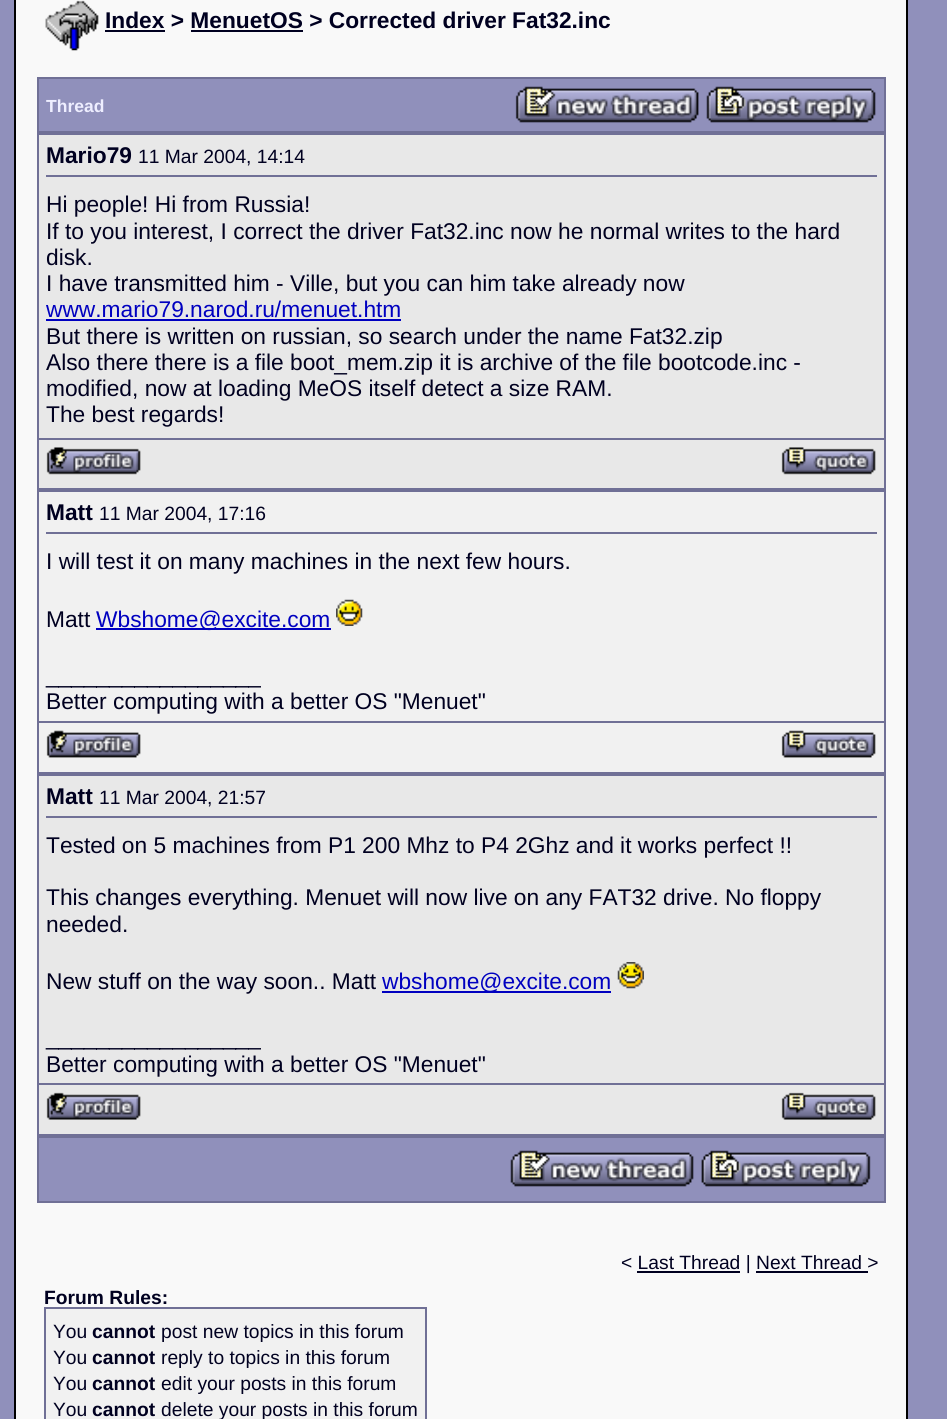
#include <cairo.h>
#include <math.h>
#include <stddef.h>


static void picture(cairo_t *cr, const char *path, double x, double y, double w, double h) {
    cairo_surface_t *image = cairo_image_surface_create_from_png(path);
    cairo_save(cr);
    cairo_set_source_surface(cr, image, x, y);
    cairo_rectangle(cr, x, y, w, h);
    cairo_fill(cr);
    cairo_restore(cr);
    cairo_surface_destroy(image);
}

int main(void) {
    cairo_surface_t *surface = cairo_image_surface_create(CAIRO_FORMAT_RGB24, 947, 1419);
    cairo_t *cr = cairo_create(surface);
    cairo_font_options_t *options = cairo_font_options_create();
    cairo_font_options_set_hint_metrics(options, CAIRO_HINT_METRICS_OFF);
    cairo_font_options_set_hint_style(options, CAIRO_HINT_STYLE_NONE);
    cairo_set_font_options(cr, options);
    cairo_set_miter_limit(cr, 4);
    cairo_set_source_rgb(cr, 0.565, 0.565, 0.733);
    cairo_paint(cr);
    cairo_set_source_rgb(cr, 0.973, 0.973, 0.973);
    cairo_rectangle(cr, 15, -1, 892, 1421);
    cairo_fill_preserve(cr);
    cairo_set_source_rgb(cr, 0, 0, 0);
    cairo_stroke(cr);
    picture(cr, "img1.png", 45, 0, 54, 51);
    cairo_select_font_face(cr, "Liberation Sans", CAIRO_FONT_SLANT_NORMAL, CAIRO_FONT_WEIGHT_BOLD);
    cairo_set_font_size(cr, 22.75);
    cairo_set_source_rgb(cr, 0, 0, 0.125);
    cairo_move_to(cr, 105, 28);
    cairo_show_text(cr, "Index > MenuetOS > Corrected driver Fat32.inc");
    cairo_rectangle(cr, 105, 30, 60, 2);
    cairo_fill(cr);
    cairo_rectangle(cr, 191, 30, 112, 2);
    cairo_fill(cr);
    cairo_set_source_rgb(cr, 0.439, 0.439, 0.588);
    cairo_rectangle(cr, 37, 77, 849, 2);
    cairo_fill(cr);
    cairo_rectangle(cr, 884, 77, 2, 56);
    cairo_fill(cr);
    cairo_rectangle(cr, 37, 131, 849, 4);
    cairo_fill(cr);
    cairo_rectangle(cr, 37, 77, 2, 56);
    cairo_fill(cr);
    cairo_set_source_rgb(cr, 0.565, 0.565, 0.733);
    cairo_rectangle(cr, 39, 79, 845, 52);
    cairo_fill(cr);
    cairo_set_font_size(cr, 17.5);
    cairo_set_source_rgb(cr, 0.933, 0.933, 1);
    cairo_move_to(cr, 46, 112);
    cairo_show_text(cr, "Thread");
    picture(cr, "img2.png", 515, 86, 184, 37);
    picture(cr, "img3.png", 706, 86, 170, 37);
    cairo_set_source_rgb(cr, 0.439, 0.439, 0.588);
    cairo_rectangle(cr, 884, 133, 2, 357);
    cairo_fill(cr);
    cairo_rectangle(cr, 37, 488, 849, 4);
    cairo_fill(cr);
    cairo_rectangle(cr, 37, 133, 2, 357);
    cairo_fill(cr);
    cairo_set_source_rgb(cr, 0.91, 0.91, 0.91);
    cairo_rectangle(cr, 39, 135, 845, 303);
    cairo_fill(cr);
    cairo_set_source_rgb(cr, 0.439, 0.439, 0.588);
    cairo_rectangle(cr, 46, 175, 831, 2);
    cairo_fill(cr);
    cairo_set_font_size(cr, 22.75);
    cairo_set_source_rgb(cr, 0, 0, 0.125);
    cairo_move_to(cr, 46, 163);
    cairo_show_text(cr, "Mario79");
    cairo_select_font_face(cr, "Liberation Sans", CAIRO_FONT_SLANT_NORMAL, CAIRO_FONT_WEIGHT_NORMAL);
    cairo_set_font_size(cr, 19.25);
    cairo_move_to(cr, 138, 163);
    cairo_show_text(cr, "11 Mar 2004, 14:14");
    cairo_set_font_size(cr, 22.75);
    cairo_move_to(cr, 46, 212);
    cairo_show_text(cr, "Hi people! Hi from Russia!");
    cairo_move_to(cr, 46, 239);
    cairo_show_text(cr, "If to you interest, I correct the driver Fat32.inc now he normal writes to the hard");
    cairo_move_to(cr, 46, 265);
    cairo_show_text(cr, "disk.");
    cairo_move_to(cr, 46, 291);
    cairo_show_text(cr, "I have transmitted him - Ville, but you can him take already now");
    cairo_set_source_rgb(cr, 0, 0, 0.753);
    cairo_move_to(cr, 46, 317);
    cairo_show_text(cr, "www.mario79.narod.ru/menuet.htm");
    cairo_rectangle(cr, 46, 319, 355, 2);
    cairo_fill(cr);
    cairo_set_source_rgb(cr, 0, 0, 0.125);
    cairo_move_to(cr, 46, 344);
    cairo_show_text(cr, "But there is written on russian, so search under the name Fat32.zip");
    cairo_move_to(cr, 46, 370);
    cairo_show_text(cr, "Also there there is a file boot_mem.zip it is archive of the file bootcode.inc -");
    cairo_move_to(cr, 46, 396);
    cairo_show_text(cr, "modified, now at loading MeOS itself detect a size RAM.");
    cairo_move_to(cr, 46, 422);
    cairo_show_text(cr, "The best regards!");
    cairo_set_source_rgb(cr, 0.439, 0.439, 0.588);
    cairo_rectangle(cr, 37, 438, 849, 2);
    cairo_fill(cr);
    cairo_set_source_rgb(cr, 0.91, 0.91, 0.91);
    cairo_rectangle(cr, 39, 440, 845, 48);
    cairo_fill(cr);
    picture(cr, "img4.png", 46, 447, 95, 28);
    picture(cr, "img5.png", 781, 447, 95, 28);
    cairo_set_source_rgb(cr, 0.439, 0.439, 0.588);
    cairo_rectangle(cr, 884, 490, 2, 284);
    cairo_fill(cr);
    cairo_rectangle(cr, 37, 772, 849, 4);
    cairo_fill(cr);
    cairo_rectangle(cr, 37, 490, 2, 284);
    cairo_fill(cr);
    cairo_set_source_rgb(cr, 0.945, 0.945, 0.945);
    cairo_rectangle(cr, 39, 492, 845, 229);
    cairo_fill(cr);
    cairo_set_source_rgb(cr, 0.439, 0.439, 0.588);
    cairo_rectangle(cr, 46, 532, 831, 2);
    cairo_fill(cr);
    cairo_select_font_face(cr, "Liberation Sans", CAIRO_FONT_SLANT_NORMAL, CAIRO_FONT_WEIGHT_BOLD);
    cairo_set_source_rgb(cr, 0, 0, 0.125);
    cairo_move_to(cr, 46, 520);
    cairo_show_text(cr, "Matt");
    cairo_select_font_face(cr, "Liberation Sans", CAIRO_FONT_SLANT_NORMAL, CAIRO_FONT_WEIGHT_NORMAL);
    cairo_set_font_size(cr, 19.25);
    cairo_move_to(cr, 99, 520);
    cairo_show_text(cr, "11 Mar 2004, 17:16");
    cairo_set_font_size(cr, 22.75);
    cairo_move_to(cr, 46, 569);
    cairo_show_text(cr, "I will test it on many machines in the next few hours.");
    cairo_move_to(cr, 46, 627);
    cairo_show_text(cr, "Matt");
    cairo_set_source_rgb(cr, 0, 0, 0.753);
    cairo_rectangle(cr, 96, 628, 235, 2);
    cairo_fill(cr);
    cairo_move_to(cr, 96, 627);
    cairo_show_text(cr, "Wbshome@excite.com");
    picture(cr, "img6.png", 336, 599, 27, 27);
    cairo_set_source_rgb(cr, 0, 0, 0.125);
    cairo_move_to(cr, 46, 683);
    cairo_show_text(cr, "_________________");
    cairo_move_to(cr, 46, 709);
    cairo_show_text(cr, "Better computing with a better OS \"Menuet\"");
    cairo_set_source_rgb(cr, 0.439, 0.439, 0.588);
    cairo_rectangle(cr, 37, 721, 849, 2);
    cairo_fill(cr);
    cairo_set_source_rgb(cr, 0.945, 0.945, 0.945);
    cairo_rectangle(cr, 39, 723, 845, 49);
    cairo_fill(cr);
    picture(cr, "img7.png", 46, 730, 95, 28);
    picture(cr, "img8.png", 781, 730, 95, 28);
    cairo_set_source_rgb(cr, 0.439, 0.439, 0.588);
    cairo_rectangle(cr, 884, 774, 2, 362);
    cairo_fill(cr);
    cairo_rectangle(cr, 37, 1134, 849, 4);
    cairo_fill(cr);
    cairo_rectangle(cr, 37, 774, 2, 362);
    cairo_fill(cr);
    cairo_set_source_rgb(cr, 0.91, 0.91, 0.91);
    cairo_rectangle(cr, 39, 776, 845, 307);
    cairo_fill(cr);
    cairo_set_source_rgb(cr, 0.439, 0.439, 0.588);
    cairo_rectangle(cr, 46, 816, 831, 2);
    cairo_fill(cr);
    cairo_select_font_face(cr, "Liberation Sans", CAIRO_FONT_SLANT_NORMAL, CAIRO_FONT_WEIGHT_BOLD);
    cairo_set_source_rgb(cr, 0, 0, 0.125);
    cairo_move_to(cr, 46, 804);
    cairo_show_text(cr, "Matt");
    cairo_select_font_face(cr, "Liberation Sans", CAIRO_FONT_SLANT_NORMAL, CAIRO_FONT_WEIGHT_NORMAL);
    cairo_set_font_size(cr, 19.25);
    cairo_move_to(cr, 99, 804);
    cairo_show_text(cr, "11 Mar 2004, 21:57");
    cairo_set_font_size(cr, 22.75);
    cairo_move_to(cr, 46, 853);
    cairo_show_text(cr, "Tested on 5 machines from P1 200 Mhz to P4 2Ghz and it works perfect !!");
    cairo_move_to(cr, 46, 905);
    cairo_show_text(cr, "This changes everything. Menuet will now live on any FAT32 drive. No floppy");
    cairo_move_to(cr, 46, 932);
    cairo_show_text(cr, "needed.");
    cairo_move_to(cr, 46, 989);
    cairo_show_text(cr, "New stuff on the way soon.. Matt");
    cairo_set_source_rgb(cr, 0, 0, 0.753);
    cairo_rectangle(cr, 382, 991, 229, 2);
    cairo_fill(cr);
    cairo_move_to(cr, 382, 989);
    cairo_show_text(cr, "wbshome@excite.com");
    picture(cr, "img9.png", 617, 962, 27, 27);
    cairo_set_source_rgb(cr, 0, 0, 0.125);
    cairo_move_to(cr, 46, 1045);
    cairo_show_text(cr, "_________________");
    cairo_move_to(cr, 46, 1072);
    cairo_show_text(cr, "Better computing with a better OS \"Menuet\"");
    cairo_set_source_rgb(cr, 0.439, 0.439, 0.588);
    cairo_rectangle(cr, 37, 1083, 849, 2);
    cairo_fill(cr);
    cairo_set_source_rgb(cr, 0.91, 0.91, 0.91);
    cairo_rectangle(cr, 39, 1085, 845, 49);
    cairo_fill(cr);
    picture(cr, "img10.png", 46, 1092, 95, 28);
    picture(cr, "img11.png", 781, 1092, 95, 28);
    cairo_set_source_rgb(cr, 0.439, 0.439, 0.588);
    cairo_rectangle(cr, 884, 1136, 2, 66);
    cairo_fill(cr);
    cairo_rectangle(cr, 37, 1201, 849, 2);
    cairo_fill(cr);
    cairo_rectangle(cr, 37, 1136, 2, 66);
    cairo_fill(cr);
    cairo_set_source_rgb(cr, 0.565, 0.565, 0.733);
    cairo_rectangle(cr, 39, 1138, 845, 63);
    cairo_fill(cr);
    picture(cr, "img12.png", 510, 1150, 184, 37);
    picture(cr, "img13.png", 701, 1150, 170, 37);
    cairo_set_font_size(cr, 19.25);
    cairo_set_source_rgb(cr, 0, 0, 0.125);
    cairo_move_to(cr, 621, 1269);
    cairo_show_text(cr, "< Last Thread | Next Thread >");
    cairo_rectangle(cr, 637, 1271, 103, 2);
    cairo_fill(cr);
    cairo_rectangle(cr, 756, 1271, 112, 2);
    cairo_fill(cr);
    cairo_select_font_face(cr, "Liberation Sans", CAIRO_FONT_SLANT_NORMAL, CAIRO_FONT_WEIGHT_BOLD);
    cairo_move_to(cr, 44, 1304);
    cairo_show_text(cr, "Forum Rules:");
    cairo_set_source_rgb(cr, 0.439, 0.439, 0.588);
    cairo_rectangle(cr, 44, 1307, 383, 2);
    cairo_fill(cr);
    cairo_rectangle(cr, 425, 1307, 2, 112);
    cairo_fill(cr);
    cairo_rectangle(cr, 44, 1307, 2, 112);
    cairo_fill(cr);
    cairo_set_source_rgb(cr, 0.945, 0.945, 0.945);
    cairo_rectangle(cr, 46, 1309, 379, 110);
    cairo_fill(cr);
    cairo_select_font_face(cr, "Liberation Sans", CAIRO_FONT_SLANT_NORMAL, CAIRO_FONT_WEIGHT_NORMAL);
    cairo_set_source_rgb(cr, 0, 0, 0.125);
    cairo_move_to(cr, 53, 1338);
    cairo_show_text(cr, "You");
    cairo_select_font_face(cr, "Liberation Sans", CAIRO_FONT_SLANT_NORMAL, CAIRO_FONT_WEIGHT_BOLD);
    cairo_move_to(cr, 92, 1338);
    cairo_show_text(cr, "cannot");
    cairo_select_font_face(cr, "Liberation Sans", CAIRO_FONT_SLANT_NORMAL, CAIRO_FONT_WEIGHT_NORMAL);
    cairo_move_to(cr, 161, 1338);
    cairo_show_text(cr, "post new topics in this forum");
    cairo_move_to(cr, 53, 1364);
    cairo_show_text(cr, "You");
    cairo_select_font_face(cr, "Liberation Sans", CAIRO_FONT_SLANT_NORMAL, CAIRO_FONT_WEIGHT_BOLD);
    cairo_move_to(cr, 92, 1364);
    cairo_show_text(cr, "cannot");
    cairo_select_font_face(cr, "Liberation Sans", CAIRO_FONT_SLANT_NORMAL, CAIRO_FONT_WEIGHT_NORMAL);
    cairo_move_to(cr, 161, 1364);
    cairo_show_text(cr, "reply to topics in this forum");
    cairo_move_to(cr, 53, 1390);
    cairo_show_text(cr, "You");
    cairo_select_font_face(cr, "Liberation Sans", CAIRO_FONT_SLANT_NORMAL, CAIRO_FONT_WEIGHT_BOLD);
    cairo_move_to(cr, 92, 1390);
    cairo_show_text(cr, "cannot");
    cairo_select_font_face(cr, "Liberation Sans", CAIRO_FONT_SLANT_NORMAL, CAIRO_FONT_WEIGHT_NORMAL);
    cairo_move_to(cr, 161, 1390);
    cairo_show_text(cr, "edit your posts in this forum");
    cairo_move_to(cr, 53, 1416);
    cairo_show_text(cr, "You");
    cairo_select_font_face(cr, "Liberation Sans", CAIRO_FONT_SLANT_NORMAL, CAIRO_FONT_WEIGHT_BOLD);
    cairo_move_to(cr, 92, 1416);
    cairo_show_text(cr, "cannot");
    cairo_select_font_face(cr, "Liberation Sans", CAIRO_FONT_SLANT_NORMAL, CAIRO_FONT_WEIGHT_NORMAL);
    cairo_move_to(cr, 161, 1416);
    cairo_show_text(cr, "delete your posts in this forum");
    cairo_surface_write_to_png(surface, "page.png");
    cairo_font_options_destroy(options);
    cairo_destroy(cr);
    cairo_surface_destroy(surface);
    return 0;
}
